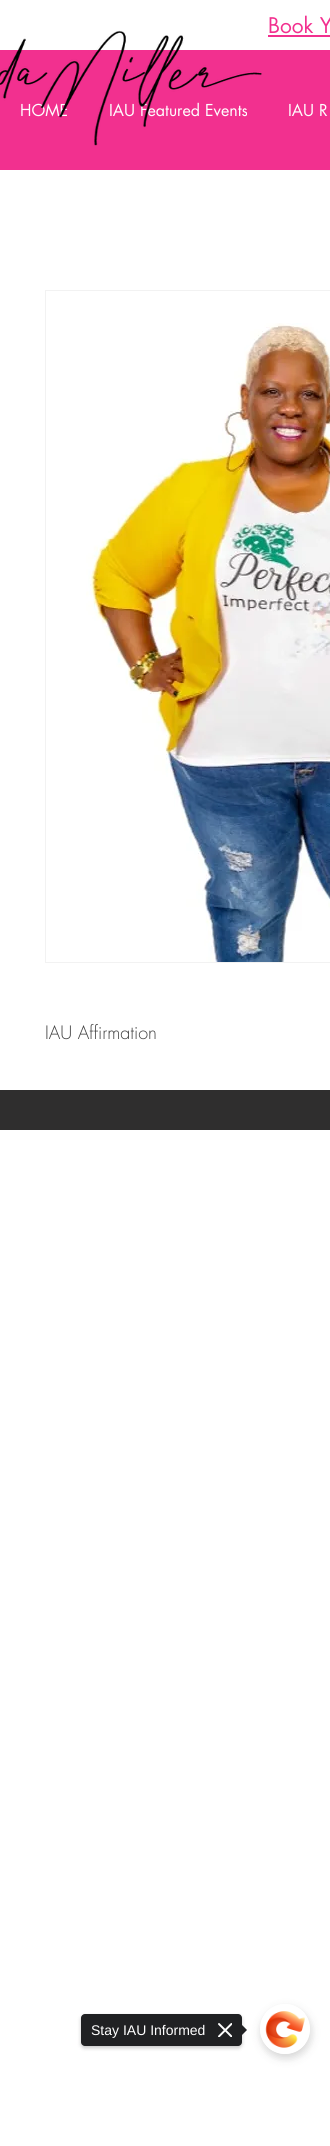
#include <cairo.h>
#include <math.h>
#include <stddef.h>


static void round_rect(cairo_t *cr, double x, double y, double w, double h, double r) {
    cairo_new_sub_path(cr);
    cairo_arc(cr, x + w - r, y + h - r, r, 0, M_PI / 2);
    cairo_arc(cr, x + r, y + h - r, r, M_PI / 2, M_PI);
    cairo_arc(cr, x + r, y + r, r, M_PI, 1.5 * M_PI);
    cairo_arc(cr, x + w - r, y + r, r, 1.5 * M_PI, 2 * M_PI);
    cairo_close_path(cr);
}

static void shadow(cairo_t *cr, double x, double y, double w, double h, double r, double blur, double alpha) {
    cairo_push_group_with_content(cr, CAIRO_CONTENT_ALPHA);
    cairo_set_operator(cr, CAIRO_OPERATOR_SOURCE);
    for (int i = 15; i >= -15 && fmin(w, h) + blur * i / 3 > 0; i -= 2) {
        double e = blur * i / 6;
        cairo_set_source_rgba(cr, 0, 0, 0, alpha * erfc((i - 1) / 8.5) / 2);
        round_rect(cr, x - e, y - e, w + 2 * e, h + 2 * e, fmax(0, fmin(r + e + blur * .6, fmin(w, h) / 2 + e)));
        cairo_fill(cr);
    }
    cairo_pattern_t *soft = cairo_pop_group(cr);
    cairo_mask(cr, soft);
    cairo_pattern_destroy(soft);
}

static void picture(cairo_t *cr, const char *path, double x, double y, double w, double h) {
    cairo_surface_t *image = cairo_image_surface_create_from_png(path);
    cairo_save(cr);
    cairo_set_source_surface(cr, image, x, y);
    cairo_rectangle(cr, x, y, w, h);
    cairo_fill(cr);
    cairo_restore(cr);
    cairo_surface_destroy(image);
}

int main(void) {
    cairo_surface_t *surface = cairo_image_surface_create(CAIRO_FORMAT_RGB24, 330, 2146);
    cairo_t *cr = cairo_create(surface);
    cairo_font_options_t *options = cairo_font_options_create();
    cairo_font_options_set_hint_metrics(options, CAIRO_HINT_METRICS_OFF);
    cairo_font_options_set_hint_style(options, CAIRO_HINT_STYLE_NONE);
    cairo_set_font_options(cr, options);
    cairo_set_miter_limit(cr, 4);
    cairo_set_source_rgb(cr, 1, 1, 1);
    cairo_paint(cr);
    cairo_select_font_face(cr, "futura", CAIRO_FONT_SLANT_NORMAL, CAIRO_FONT_WEIGHT_NORMAL);
    cairo_set_font_size(cr, 21);
    cairo_set_source_rgb(cr, 0.949, 0.188, 0.561);
    cairo_move_to(cr, 268, 33);
    cairo_show_text(cr, "Book Y");
    cairo_rectangle(cr, 268, 35, 62, 2);
    cairo_fill(cr);
    cairo_rectangle(cr, 0, 50, 330, 120);
    cairo_fill(cr);
    cairo_set_font_size(cr, 16);
    cairo_set_source_rgb(cr, 1, 1, 1);
    cairo_move_to(cr, 20, 116);
    cairo_show_text(cr, "HOME");
    cairo_move_to(cr, 109, 116);
    cairo_show_text(cr, "IAU Featured Events");
    picture(cr, "img1.png", 0, 30, 262, 116);
    cairo_move_to(cr, 288, 116);
    cairo_show_text(cr, "IAU R");
    cairo_rectangle(cr, 45.5, 290.5, 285, 672);
    cairo_set_source_rgb(cr, 0.949, 0.949, 0.949);
    cairo_set_line_width(cr, 1);
    cairo_stroke(cr);
    picture(cr, "img2.png", 86, 323, 244, 639);
    cairo_select_font_face(cr, "futura Light", CAIRO_FONT_SLANT_NORMAL, CAIRO_FONT_WEIGHT_NORMAL);
    cairo_set_font_size(cr, 18);
    cairo_set_source_rgb(cr, 0.255, 0.255, 0.255);
    cairo_move_to(cr, 45, 1039);
    cairo_show_text(cr, "IAU Affirmation");
    cairo_set_source_rgb(cr, 0.184, 0.18, 0.18);
    cairo_rectangle(cr, 0, 1090, 330, 40);
    cairo_fill(cr);
    cairo_save(cr);
    cairo_set_fill_rule(cr, CAIRO_FILL_RULE_EVEN_ODD);
    cairo_new_path(cr);
    cairo_move_to(cr, 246, 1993);
    cairo_line_to(cr, 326, 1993);
    cairo_line_to(cr, 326, 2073);
    cairo_line_to(cr, 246, 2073);
    cairo_close_path(cr);
    cairo_move_to(cr, 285, 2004);
    cairo_curve_to(cr, 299, 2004, 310, 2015, 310, 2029);
    cairo_curve_to(cr, 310, 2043, 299, 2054, 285, 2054);
    cairo_curve_to(cr, 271, 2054, 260, 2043, 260, 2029);
    cairo_curve_to(cr, 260, 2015, 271, 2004, 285, 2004);
    cairo_close_path(cr);
    cairo_clip(cr);
    cairo_set_source_rgb(cr, 0, 0, 0);
    shadow(cr, 261, 2008, 50, 50, 25, 4.5, 0.17);
    cairo_restore(cr);
    cairo_set_source_rgb(cr, 0, 0, 0);
    shadow(cr, 81, 2016, 161, 32, 4, 2, 0.22);
    cairo_set_source_rgb(cr, 0.125, 0.129, 0.137);
    round_rect(cr, 81, 2014, 161, 32, 4);
    cairo_fill(cr);
    cairo_select_font_face(cr, "Liberation Sans", CAIRO_FONT_SLANT_NORMAL, CAIRO_FONT_WEIGHT_NORMAL);
    cairo_set_font_size(cr, 14);
    cairo_set_source_rgb(cr, 1, 1, 1);
    cairo_move_to(cr, 91, 2035);
    cairo_show_text(cr, "Stay IAU Informed");
    picture(cr, "img3.png", 218, 2023, 14, 14);
    cairo_set_source_rgb(cr, 0.125, 0.129, 0.137);
    cairo_new_path(cr);
    cairo_move_to(cr, 240, 2037);
    cairo_line_to(cr, 240, 2023);
    cairo_line_to(cr, 247, 2030);
    cairo_close_path(cr);
    cairo_fill(cr);
    picture(cr, "img4.png", 265, 2011, 40, 43);
    cairo_surface_write_to_png(surface, "page.png");
    cairo_font_options_destroy(options);
    cairo_destroy(cr);
    cairo_surface_destroy(surface);
    return 0;
}
